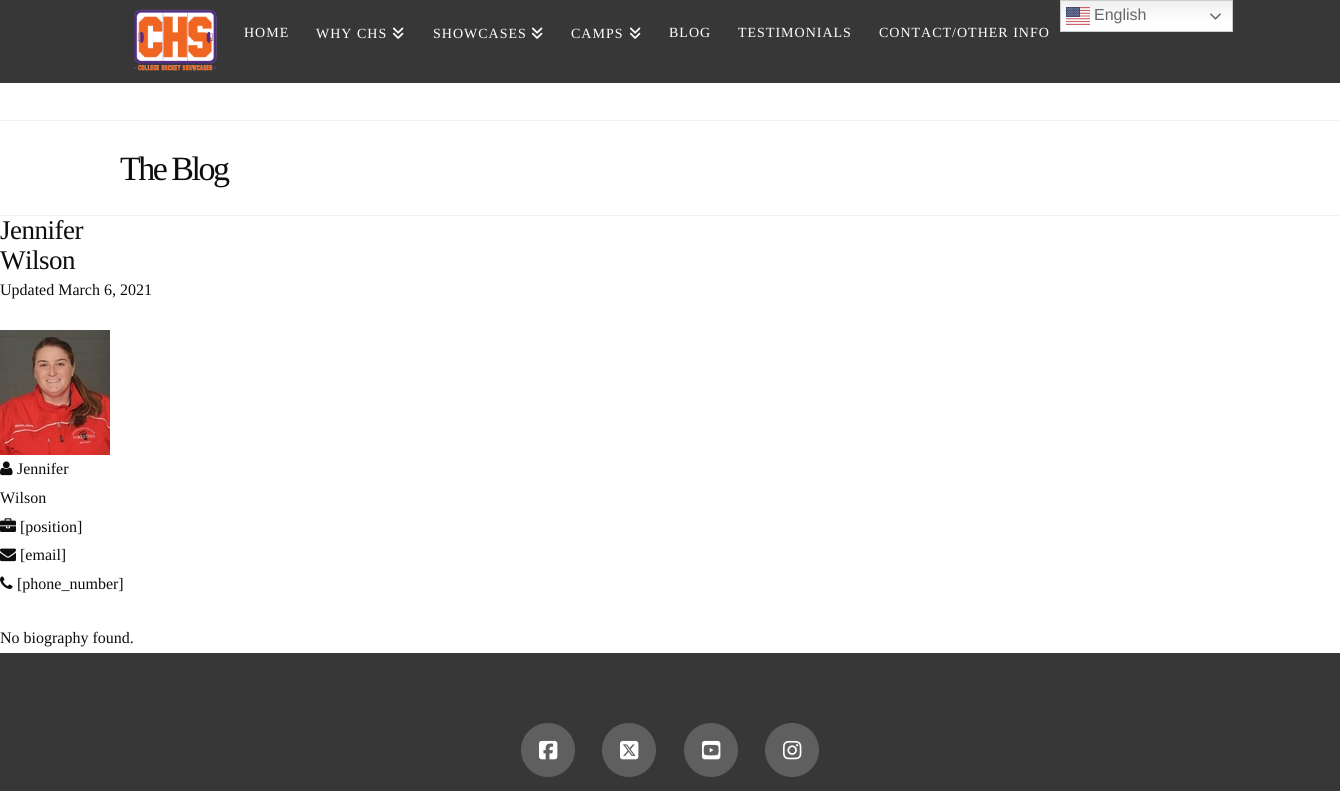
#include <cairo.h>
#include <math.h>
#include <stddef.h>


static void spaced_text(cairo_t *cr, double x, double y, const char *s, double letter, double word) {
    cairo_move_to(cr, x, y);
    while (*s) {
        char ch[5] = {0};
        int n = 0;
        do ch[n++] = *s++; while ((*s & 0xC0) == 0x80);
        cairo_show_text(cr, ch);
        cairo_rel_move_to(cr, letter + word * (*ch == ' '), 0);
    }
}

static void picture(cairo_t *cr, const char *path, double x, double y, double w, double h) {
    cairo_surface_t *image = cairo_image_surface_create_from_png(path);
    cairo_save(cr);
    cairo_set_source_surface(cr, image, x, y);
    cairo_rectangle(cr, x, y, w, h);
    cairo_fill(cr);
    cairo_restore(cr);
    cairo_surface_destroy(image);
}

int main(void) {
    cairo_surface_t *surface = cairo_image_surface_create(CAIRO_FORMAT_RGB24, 1340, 791);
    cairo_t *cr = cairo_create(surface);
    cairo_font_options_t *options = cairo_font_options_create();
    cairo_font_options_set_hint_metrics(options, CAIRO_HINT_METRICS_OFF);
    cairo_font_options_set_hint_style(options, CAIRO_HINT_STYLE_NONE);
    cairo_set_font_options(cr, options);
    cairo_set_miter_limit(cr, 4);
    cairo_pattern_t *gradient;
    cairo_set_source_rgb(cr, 1, 1, 1);
    cairo_paint(cr);
    cairo_set_source_rgb(cr, 0.216, 0.216, 0.216);
    cairo_rectangle(cr, 0, 0, 1340, 83);
    cairo_fill(cr);
    gradient = cairo_pattern_create_linear(1147, 0, 1147, 32);
    cairo_pattern_add_color_stop_rgba(gradient, 0, 0.937, 0.937, 0.937, 1);
    cairo_pattern_add_color_stop_rgba(gradient, 0.7, 1, 1, 1, 1);
    cairo_set_source(cr, gradient);
    cairo_pattern_destroy(gradient);
    cairo_rectangle(cr, 1061, 1, 171, 30);
    cairo_fill(cr);
    cairo_rectangle(cr, 1060.5, 0.5, 172, 31);
    cairo_set_source_rgb(cr, 0.8, 0.8, 0.8);
    cairo_set_line_width(cr, 1);
    cairo_stroke(cr);
    picture(cr, "img1.png", 1066, 7, 24, 18);
    cairo_select_font_face(cr, "Liberation Sans", CAIRO_FONT_SLANT_NORMAL, CAIRO_FONT_WEIGHT_NORMAL);
    cairo_set_font_size(cr, 16);
    cairo_set_source_rgb(cr, 0.4, 0.4, 0.4);
    cairo_move_to(cr, 1094, 20);
    cairo_show_text(cr, "English");
    picture(cr, "img2.png", 1210, 13, 11, 7);
    picture(cr, "img3.png", 134, 9, 83, 62);
    cairo_select_font_face(cr, "Liberation Serif", CAIRO_FONT_SLANT_NORMAL, CAIRO_FONT_WEIGHT_NORMAL);
    cairo_set_font_size(cr, 14);
    cairo_set_source_rgb(cr, 1, 1, 1);
    spaced_text(cr, 244, 37, "HOME", 1, 0);
    spaced_text(cr, 316, 38, "WHY CHS", 1, 0);
    picture(cr, "img4.png", 392, 27, 12, 12);
    spaced_text(cr, 433, 38, "SHOWCASES", 1, 0);
    picture(cr, "img4.png", 531, 27, 12, 12);
    spaced_text(cr, 571, 38, "CAMPS", 1, 0);
    picture(cr, "img4.png", 629, 27, 12, 12);
    spaced_text(cr, 669, 37, "BLOG", 1, 0);
    spaced_text(cr, 738, 37, "TESTIMONIALS", 1, 0);
    spaced_text(cr, 879, 37, "CONTACT/OTHER INFO", 1, 0);
    cairo_set_source_rgb(cr, 0.949, 0.949, 0.949);
    cairo_rectangle(cr, 0, 120, 1340, 1);
    cairo_fill(cr);
    cairo_rectangle(cr, 0, 215, 1340, 1);
    cairo_fill(cr);
    cairo_set_font_size(cr, 34);
    cairo_set_source_rgb(cr, 0.051, 0.051, 0.051);
    spaced_text(cr, 120, 180, "The Blog", -2.5, 0);
    cairo_set_font_size(cr, 27);
    spaced_text(cr, 0, 239, "Jennifer", -0.5, 0);
    spaced_text(cr, 0, 269, "Wilson", -0.5, 0);
    cairo_set_font_size(cr, 16);
    cairo_move_to(cr, 0, 295);
    cairo_show_text(cr, "Updated March 6, 2021");
    picture(cr, "img5.png", 0, 330, 110, 125);
    picture(cr, "img6.png", 0, 461, 13, 15);
    cairo_move_to(cr, 17, 474);
    cairo_show_text(cr, "Jennifer");
    cairo_move_to(cr, 0, 503);
    cairo_show_text(cr, "Wilson");
    picture(cr, "img7.png", 0, 518, 16, 14);
    cairo_move_to(cr, 20, 532);
    cairo_show_text(cr, "[position]");
    picture(cr, "img8.png", 0, 548, 16, 14);
    cairo_move_to(cr, 20, 560);
    cairo_show_text(cr, "[email]");
    picture(cr, "img9.png", 0, 576, 13, 13);
    cairo_move_to(cr, 17, 589);
    cairo_show_text(cr, "[phone_number]");
    cairo_move_to(cr, 0, 643);
    cairo_show_text(cr, "No biography found.");
    cairo_set_source_rgb(cr, 0.216, 0.216, 0.216);
    cairo_rectangle(cr, 0, 653, 1340, 138);
    cairo_fill(cr);
    cairo_set_source_rgb(cr, 0.373, 0.373, 0.373);
    cairo_arc(cr, 548, 750, 27, 0, 2 * M_PI);
    cairo_fill(cr);
    picture(cr, "img10.png", 539, 740, 19, 20);
    cairo_arc(cr, 629, 750, 27, 0, 2 * M_PI);
    cairo_fill(cr);
    picture(cr, "img11.png", 620, 740, 19, 20);
    cairo_arc(cr, 711, 750, 27, 0, 2 * M_PI);
    cairo_fill(cr);
    picture(cr, "img12.png", 702, 740, 19, 20);
    cairo_arc(cr, 792, 750, 27, 0, 2 * M_PI);
    cairo_fill(cr);
    picture(cr, "img13.png", 783, 740, 19, 20);
    cairo_surface_write_to_png(surface, "page.png");
    cairo_font_options_destroy(options);
    cairo_destroy(cr);
    cairo_surface_destroy(surface);
    return 0;
}
